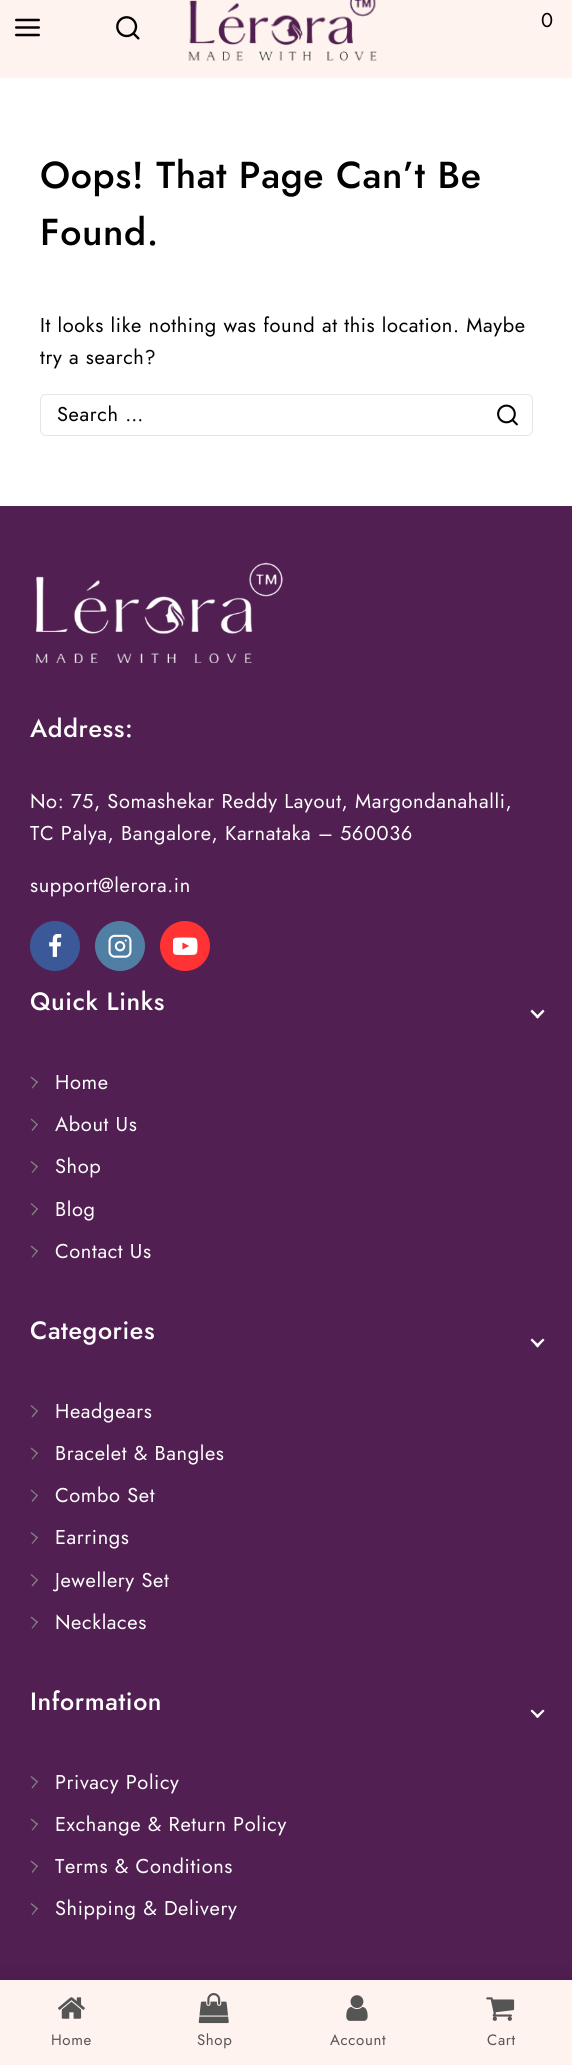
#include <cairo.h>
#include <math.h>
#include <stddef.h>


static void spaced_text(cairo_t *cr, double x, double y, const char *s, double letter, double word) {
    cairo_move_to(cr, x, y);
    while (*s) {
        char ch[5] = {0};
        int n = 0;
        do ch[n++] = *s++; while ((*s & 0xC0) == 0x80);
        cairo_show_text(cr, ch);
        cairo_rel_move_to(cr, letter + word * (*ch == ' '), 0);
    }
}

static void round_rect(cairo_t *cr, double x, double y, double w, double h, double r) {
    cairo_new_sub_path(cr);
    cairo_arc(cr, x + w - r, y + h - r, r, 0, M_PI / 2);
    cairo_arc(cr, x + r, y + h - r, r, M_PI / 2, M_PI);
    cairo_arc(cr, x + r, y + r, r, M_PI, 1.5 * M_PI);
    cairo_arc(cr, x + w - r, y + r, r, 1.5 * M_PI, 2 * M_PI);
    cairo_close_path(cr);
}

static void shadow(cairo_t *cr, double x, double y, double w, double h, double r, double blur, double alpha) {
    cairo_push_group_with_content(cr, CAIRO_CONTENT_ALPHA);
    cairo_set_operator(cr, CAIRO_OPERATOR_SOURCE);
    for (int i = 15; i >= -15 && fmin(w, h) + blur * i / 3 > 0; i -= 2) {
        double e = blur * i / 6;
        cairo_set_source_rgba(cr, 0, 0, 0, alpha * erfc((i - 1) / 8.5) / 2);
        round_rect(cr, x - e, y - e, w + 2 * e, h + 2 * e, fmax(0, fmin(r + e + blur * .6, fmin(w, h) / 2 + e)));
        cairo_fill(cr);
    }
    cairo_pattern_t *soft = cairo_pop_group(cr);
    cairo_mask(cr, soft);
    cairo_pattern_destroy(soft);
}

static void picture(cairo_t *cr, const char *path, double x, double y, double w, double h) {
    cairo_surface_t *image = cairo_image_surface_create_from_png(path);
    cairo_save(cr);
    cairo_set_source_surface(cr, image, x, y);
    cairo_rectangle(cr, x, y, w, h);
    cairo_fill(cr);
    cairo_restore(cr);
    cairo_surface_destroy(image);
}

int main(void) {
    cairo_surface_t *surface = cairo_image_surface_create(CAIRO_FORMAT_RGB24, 572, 2065);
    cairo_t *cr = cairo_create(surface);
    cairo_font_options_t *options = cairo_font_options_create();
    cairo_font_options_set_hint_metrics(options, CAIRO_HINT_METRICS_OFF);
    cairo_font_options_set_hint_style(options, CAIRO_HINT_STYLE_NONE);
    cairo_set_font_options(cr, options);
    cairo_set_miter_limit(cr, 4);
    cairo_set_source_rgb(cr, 1, 1, 1);
    cairo_paint(cr);
    cairo_set_source_rgb(cr, 1, 0.953, 0.937);
    cairo_rectangle(cr, 0, 0, 572, 78);
    cairo_fill(cr);
    picture(cr, "img1.png", 15, 18, 25, 19);
    picture(cr, "img2.png", 116, 16, 24, 24);
    picture(cr, "img3.png", 188, 0, 189, 61);
    cairo_select_font_face(cr, "Jost", CAIRO_FONT_SLANT_NORMAL, CAIRO_FONT_WEIGHT_NORMAL);
    cairo_set_font_size(cr, 20);
    cairo_set_source_rgb(cr, 0, 0, 0);
    cairo_move_to(cr, 541, 27);
    cairo_show_text(cr, "0");
    cairo_select_font_face(cr, "Jost Medium", CAIRO_FONT_SLANT_NORMAL, CAIRO_FONT_WEIGHT_NORMAL);
    cairo_set_font_size(cr, 37.5);
    spaced_text(cr, 40, 188, "Oops! That Page Can’t Be", 0.62, 0);
    spaced_text(cr, 40, 245, "Found.", 0.62, 0);
    cairo_select_font_face(cr, "Jost", CAIRO_FONT_SLANT_NORMAL, CAIRO_FONT_WEIGHT_NORMAL);
    cairo_set_font_size(cr, 20);
    spaced_text(cr, 40, 332, "It looks like nothing was found at this location. Maybe", 0.62, 0);
    spaced_text(cr, 40, 364, "try a search?", 0.62, 0);
    round_rect(cr, 40.5, 394.5, 492, 41, 5.5);
    cairo_set_source_rgb(cr, 0.898, 0.898, 0.898);
    cairo_set_line_width(cr, 1);
    cairo_stroke(cr);
    cairo_set_source_rgb(cr, 0, 0, 0);
    spaced_text(cr, 57, 421, "Search …", 0.62, 0);
    picture(cr, "img4.png", 497, 404, 21, 22);
    cairo_set_source_rgb(cr, 0.318, 0.122, 0.322);
    cairo_rectangle(cr, 0, 506, 572, 1474);
    cairo_fill(cr);
    picture(cr, "img5.png", 36, 562, 248, 101);
    cairo_select_font_face(cr, "Jost Medium", CAIRO_FONT_SLANT_NORMAL, CAIRO_FONT_WEIGHT_NORMAL);
    cairo_set_font_size(cr, 25);
    cairo_set_source_rgb(cr, 1, 1, 1);
    spaced_text(cr, 30, 737, "Address:", 0.62, 0);
    cairo_select_font_face(cr, "Jost", CAIRO_FONT_SLANT_NORMAL, CAIRO_FONT_WEIGHT_NORMAL);
    cairo_set_font_size(cr, 20);
    spaced_text(cr, 30, 808, "No: 75, Somashekar Reddy Layout, Margondanahalli,", 0.62, 0);
    spaced_text(cr, 30, 840, "TC Palya, Bangalore, Karnataka – 560036", 0.62, 0);
    spaced_text(cr, 30, 892, "support@lerora.in", 0.62, 0);
    cairo_set_source_rgb(cr, 0.231, 0.349, 0.596);
    cairo_new_path(cr);
    cairo_arc(cr, 55, 946, 25, 0, 2 * M_PI);
    cairo_fill(cr);
    picture(cr, "img6.png", 49, 934, 13, 23);
    cairo_set_source_rgb(cr, 0.318, 0.498, 0.643);
    cairo_arc(cr, 120, 946, 25, 0, 2 * M_PI);
    cairo_fill(cr);
    picture(cr, "img7.png", 108, 934, 24, 24);
    cairo_set_source_rgb(cr, 1, 0.2, 0.2);
    cairo_arc(cr, 185, 946, 25, 0, 2 * M_PI);
    cairo_fill(cr);
    picture(cr, "img8.png", 173, 937, 25, 18);
    cairo_select_font_face(cr, "Jost Medium", CAIRO_FONT_SLANT_NORMAL, CAIRO_FONT_WEIGHT_NORMAL);
    cairo_set_font_size(cr, 25);
    cairo_set_source_rgb(cr, 1, 1, 1);
    spaced_text(cr, 30, 1010, "Quick Links", 0.62, 0);
    cairo_new_path(cr);
    cairo_move_to(cr, 544.5, 1011.5);
    cairo_line_to(cr, 537.5, 1018.5);
    cairo_line_to(cr, 535.5, 1017);
    cairo_line_to(cr, 543, 1009.5);
    cairo_close_path(cr);
    cairo_fill(cr);
    cairo_new_path(cr);
    cairo_move_to(cr, 539.5, 1017);
    cairo_line_to(cr, 537.5, 1018.5);
    cairo_line_to(cr, 530.5, 1011.5);
    cairo_line_to(cr, 532, 1009.5);
    cairo_close_path(cr);
    cairo_fill(cr);
    cairo_set_source_rgb(cr, 0.502, 0.502, 0.502);
    cairo_new_path(cr);
    cairo_move_to(cr, 31.5, 1076.5);
    cairo_line_to(cr, 38, 1082);
    cairo_line_to(cr, 37, 1083);
    cairo_line_to(cr, 30.5, 1077.5);
    cairo_close_path(cr);
    cairo_fill(cr);
    cairo_new_path(cr);
    cairo_move_to(cr, 37, 1081);
    cairo_line_to(cr, 38, 1082);
    cairo_line_to(cr, 32.5, 1088.5);
    cairo_line_to(cr, 31.5, 1088);
    cairo_close_path(cr);
    cairo_fill(cr);
    cairo_select_font_face(cr, "Jost", CAIRO_FONT_SLANT_NORMAL, CAIRO_FONT_WEIGHT_NORMAL);
    cairo_set_font_size(cr, 20);
    cairo_set_source_rgb(cr, 1, 1, 1);
    spaced_text(cr, 55, 1089, "Home", 0.62, 0);
    cairo_set_source_rgb(cr, 0.502, 0.502, 0.502);
    cairo_new_path(cr);
    cairo_move_to(cr, 31.5, 1118.5);
    cairo_line_to(cr, 38, 1124.5);
    cairo_line_to(cr, 37, 1125);
    cairo_line_to(cr, 30.5, 1119.5);
    cairo_close_path(cr);
    cairo_fill(cr);
    cairo_new_path(cr);
    cairo_move_to(cr, 37, 1123.5);
    cairo_line_to(cr, 38, 1124.5);
    cairo_line_to(cr, 32.5, 1131);
    cairo_line_to(cr, 31.5, 1130);
    cairo_close_path(cr);
    cairo_fill(cr);
    cairo_set_source_rgb(cr, 1, 1, 1);
    spaced_text(cr, 55, 1131, "About Us", 0.62, 0);
    cairo_set_source_rgb(cr, 0.502, 0.502, 0.502);
    cairo_new_path(cr);
    cairo_move_to(cr, 31.5, 1161);
    cairo_line_to(cr, 38, 1166.5);
    cairo_line_to(cr, 37, 1167.5);
    cairo_line_to(cr, 30.5, 1162);
    cairo_close_path(cr);
    cairo_fill(cr);
    cairo_new_path(cr);
    cairo_move_to(cr, 37, 1165.5);
    cairo_line_to(cr, 38, 1166.5);
    cairo_line_to(cr, 32.5, 1173);
    cairo_line_to(cr, 31.5, 1172.5);
    cairo_close_path(cr);
    cairo_fill(cr);
    cairo_set_source_rgb(cr, 1, 1, 1);
    spaced_text(cr, 55, 1173, "Shop", 0.62, 0);
    cairo_set_source_rgb(cr, 0.502, 0.502, 0.502);
    cairo_new_path(cr);
    cairo_move_to(cr, 31.5, 1203);
    cairo_line_to(cr, 38, 1209);
    cairo_line_to(cr, 37, 1209.5);
    cairo_line_to(cr, 30.5, 1204);
    cairo_close_path(cr);
    cairo_fill(cr);
    cairo_new_path(cr);
    cairo_move_to(cr, 37, 1208);
    cairo_line_to(cr, 38, 1209);
    cairo_line_to(cr, 32.5, 1215.5);
    cairo_line_to(cr, 31.5, 1214.5);
    cairo_close_path(cr);
    cairo_fill(cr);
    cairo_set_source_rgb(cr, 1, 1, 1);
    spaced_text(cr, 55, 1216, "Blog", 0.62, 0);
    cairo_set_source_rgb(cr, 0.502, 0.502, 0.502);
    cairo_new_path(cr);
    cairo_move_to(cr, 31.5, 1245.5);
    cairo_line_to(cr, 38, 1251);
    cairo_line_to(cr, 37, 1252);
    cairo_line_to(cr, 30.5, 1246.5);
    cairo_close_path(cr);
    cairo_fill(cr);
    cairo_new_path(cr);
    cairo_move_to(cr, 37, 1250);
    cairo_line_to(cr, 38, 1251);
    cairo_line_to(cr, 32.5, 1257.5);
    cairo_line_to(cr, 31.5, 1257);
    cairo_close_path(cr);
    cairo_fill(cr);
    cairo_set_source_rgb(cr, 1, 1, 1);
    spaced_text(cr, 55, 1258, "Contact Us", 0.62, 0);
    cairo_select_font_face(cr, "Jost Medium", CAIRO_FONT_SLANT_NORMAL, CAIRO_FONT_WEIGHT_NORMAL);
    cairo_set_font_size(cr, 25);
    spaced_text(cr, 30, 1339, "Categories", 0.62, 0);
    cairo_new_path(cr);
    cairo_move_to(cr, 544.5, 1340);
    cairo_line_to(cr, 537.5, 1347.5);
    cairo_line_to(cr, 535.5, 1345.5);
    cairo_line_to(cr, 543, 1338.5);
    cairo_close_path(cr);
    cairo_fill(cr);
    cairo_new_path(cr);
    cairo_move_to(cr, 539.5, 1345.5);
    cairo_line_to(cr, 537.5, 1347.5);
    cairo_line_to(cr, 530.5, 1340);
    cairo_line_to(cr, 532, 1338.5);
    cairo_close_path(cr);
    cairo_fill(cr);
    cairo_set_source_rgb(cr, 0.502, 0.502, 0.502);
    cairo_new_path(cr);
    cairo_move_to(cr, 31.5, 1405);
    cairo_line_to(cr, 38, 1411);
    cairo_line_to(cr, 37, 1411.5);
    cairo_line_to(cr, 30.5, 1406);
    cairo_close_path(cr);
    cairo_fill(cr);
    cairo_new_path(cr);
    cairo_move_to(cr, 37, 1410);
    cairo_line_to(cr, 38, 1411);
    cairo_line_to(cr, 32.5, 1417.5);
    cairo_line_to(cr, 31.5, 1416.5);
    cairo_close_path(cr);
    cairo_fill(cr);
    cairo_select_font_face(cr, "Jost", CAIRO_FONT_SLANT_NORMAL, CAIRO_FONT_WEIGHT_NORMAL);
    cairo_set_font_size(cr, 20);
    cairo_set_source_rgb(cr, 1, 1, 1);
    spaced_text(cr, 55, 1418, "Headgears", 0.62, 0);
    cairo_set_source_rgb(cr, 0.502, 0.502, 0.502);
    cairo_new_path(cr);
    cairo_move_to(cr, 31.5, 1447.5);
    cairo_line_to(cr, 38, 1453);
    cairo_line_to(cr, 37, 1454);
    cairo_line_to(cr, 30.5, 1448.5);
    cairo_close_path(cr);
    cairo_fill(cr);
    cairo_new_path(cr);
    cairo_move_to(cr, 37, 1452);
    cairo_line_to(cr, 38, 1453);
    cairo_line_to(cr, 32.5, 1459.5);
    cairo_line_to(cr, 31.5, 1459);
    cairo_close_path(cr);
    cairo_fill(cr);
    cairo_set_source_rgb(cr, 1, 1, 1);
    spaced_text(cr, 55, 1460, "Bracelet & Bangles", 0.62, 0);
    cairo_set_source_rgb(cr, 0.502, 0.502, 0.502);
    cairo_new_path(cr);
    cairo_move_to(cr, 31.5, 1489.5);
    cairo_line_to(cr, 38, 1495.5);
    cairo_line_to(cr, 37, 1496);
    cairo_line_to(cr, 30.5, 1490.5);
    cairo_close_path(cr);
    cairo_fill(cr);
    cairo_new_path(cr);
    cairo_move_to(cr, 37, 1494.5);
    cairo_line_to(cr, 38, 1495.5);
    cairo_line_to(cr, 32.5, 1502);
    cairo_line_to(cr, 31.5, 1501);
    cairo_close_path(cr);
    cairo_fill(cr);
    cairo_set_source_rgb(cr, 1, 1, 1);
    spaced_text(cr, 55, 1502, "Combo Set", 0.62, 0);
    cairo_set_source_rgb(cr, 0.502, 0.502, 0.502);
    cairo_new_path(cr);
    cairo_move_to(cr, 31.5, 1532);
    cairo_line_to(cr, 38, 1537.5);
    cairo_line_to(cr, 37, 1538.5);
    cairo_line_to(cr, 30.5, 1533);
    cairo_close_path(cr);
    cairo_fill(cr);
    cairo_new_path(cr);
    cairo_move_to(cr, 37, 1536.5);
    cairo_line_to(cr, 38, 1537.5);
    cairo_line_to(cr, 32.5, 1544);
    cairo_line_to(cr, 31.5, 1543.5);
    cairo_close_path(cr);
    cairo_fill(cr);
    cairo_set_source_rgb(cr, 1, 1, 1);
    spaced_text(cr, 55, 1544, "Earrings", 0.62, 0);
    cairo_set_source_rgb(cr, 0.502, 0.502, 0.502);
    cairo_new_path(cr);
    cairo_move_to(cr, 31.5, 1574);
    cairo_line_to(cr, 38, 1580);
    cairo_line_to(cr, 37, 1580.5);
    cairo_line_to(cr, 30.5, 1575);
    cairo_close_path(cr);
    cairo_fill(cr);
    cairo_new_path(cr);
    cairo_move_to(cr, 37, 1579);
    cairo_line_to(cr, 38, 1580);
    cairo_line_to(cr, 32.5, 1586.5);
    cairo_line_to(cr, 31.5, 1585.5);
    cairo_close_path(cr);
    cairo_fill(cr);
    cairo_set_source_rgb(cr, 1, 1, 1);
    spaced_text(cr, 55, 1587, "Jewellery Set", 0.62, 0);
    cairo_set_source_rgb(cr, 0.502, 0.502, 0.502);
    cairo_new_path(cr);
    cairo_move_to(cr, 31.5, 1616.5);
    cairo_line_to(cr, 38, 1622);
    cairo_line_to(cr, 37, 1623);
    cairo_line_to(cr, 30.5, 1617.5);
    cairo_close_path(cr);
    cairo_fill(cr);
    cairo_new_path(cr);
    cairo_move_to(cr, 37, 1621);
    cairo_line_to(cr, 38, 1622);
    cairo_line_to(cr, 32.5, 1628.5);
    cairo_line_to(cr, 31.5, 1628);
    cairo_close_path(cr);
    cairo_fill(cr);
    cairo_set_source_rgb(cr, 1, 1, 1);
    spaced_text(cr, 55, 1629, "Necklaces", 0.62, 0);
    cairo_select_font_face(cr, "Jost Medium", CAIRO_FONT_SLANT_NORMAL, CAIRO_FONT_WEIGHT_NORMAL);
    cairo_set_font_size(cr, 25);
    spaced_text(cr, 30, 1710, "Information", 0.62, 0);
    cairo_new_path(cr);
    cairo_move_to(cr, 544.5, 1711);
    cairo_line_to(cr, 537.5, 1718);
    cairo_line_to(cr, 535.5, 1716.5);
    cairo_line_to(cr, 543, 1709.5);
    cairo_close_path(cr);
    cairo_fill(cr);
    cairo_new_path(cr);
    cairo_move_to(cr, 539.5, 1716.5);
    cairo_line_to(cr, 537.5, 1718);
    cairo_line_to(cr, 530.5, 1711);
    cairo_line_to(cr, 532, 1709.5);
    cairo_close_path(cr);
    cairo_fill(cr);
    cairo_set_source_rgb(cr, 0.502, 0.502, 0.502);
    cairo_new_path(cr);
    cairo_move_to(cr, 31.5, 1776);
    cairo_line_to(cr, 38, 1781.5);
    cairo_line_to(cr, 37, 1782.5);
    cairo_line_to(cr, 30.5, 1777);
    cairo_close_path(cr);
    cairo_fill(cr);
    cairo_new_path(cr);
    cairo_move_to(cr, 37, 1781);
    cairo_line_to(cr, 38, 1781.5);
    cairo_line_to(cr, 32.5, 1788.5);
    cairo_line_to(cr, 31.5, 1787.5);
    cairo_close_path(cr);
    cairo_fill(cr);
    cairo_select_font_face(cr, "Jost", CAIRO_FONT_SLANT_NORMAL, CAIRO_FONT_WEIGHT_NORMAL);
    cairo_set_font_size(cr, 20);
    cairo_set_source_rgb(cr, 1, 1, 1);
    spaced_text(cr, 55, 1789, "Privacy Policy", 0.62, 0);
    cairo_set_source_rgb(cr, 0.502, 0.502, 0.502);
    cairo_new_path(cr);
    cairo_move_to(cr, 31.5, 1818.5);
    cairo_line_to(cr, 38, 1824);
    cairo_line_to(cr, 37, 1825);
    cairo_line_to(cr, 30.5, 1819.5);
    cairo_close_path(cr);
    cairo_fill(cr);
    cairo_new_path(cr);
    cairo_move_to(cr, 37, 1823);
    cairo_line_to(cr, 38, 1824);
    cairo_line_to(cr, 32.5, 1830.5);
    cairo_line_to(cr, 31.5, 1830);
    cairo_close_path(cr);
    cairo_fill(cr);
    cairo_set_source_rgb(cr, 1, 1, 1);
    spaced_text(cr, 55, 1831, "Exchange & Return Policy", 0.62, 0);
    cairo_set_source_rgb(cr, 0.502, 0.502, 0.502);
    cairo_new_path(cr);
    cairo_move_to(cr, 31.5, 1860.5);
    cairo_line_to(cr, 38, 1866);
    cairo_line_to(cr, 37, 1867);
    cairo_line_to(cr, 30.5, 1861.5);
    cairo_close_path(cr);
    cairo_fill(cr);
    cairo_new_path(cr);
    cairo_move_to(cr, 37, 1865.5);
    cairo_line_to(cr, 38, 1866);
    cairo_line_to(cr, 32.5, 1873);
    cairo_line_to(cr, 31.5, 1872);
    cairo_close_path(cr);
    cairo_fill(cr);
    cairo_set_source_rgb(cr, 1, 1, 1);
    spaced_text(cr, 55, 1873, "Terms & Conditions", 0.62, 0);
    cairo_set_source_rgb(cr, 0.502, 0.502, 0.502);
    cairo_new_path(cr);
    cairo_move_to(cr, 31.5, 1903);
    cairo_line_to(cr, 38, 1908.5);
    cairo_line_to(cr, 37, 1909.5);
    cairo_line_to(cr, 30.5, 1904);
    cairo_close_path(cr);
    cairo_fill(cr);
    cairo_new_path(cr);
    cairo_move_to(cr, 37, 1907.5);
    cairo_line_to(cr, 38, 1908.5);
    cairo_line_to(cr, 32.5, 1915);
    cairo_line_to(cr, 31.5, 1914.5);
    cairo_close_path(cr);
    cairo_fill(cr);
    cairo_set_source_rgb(cr, 1, 1, 1);
    spaced_text(cr, 55, 1915, "Shipping & Delivery", 0.62, 0);
    cairo_set_source_rgb(cr, 0, 0, 0);
    shadow(cr, 0, 1974, 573, 85, 0, 6, 0.1);
    cairo_set_source_rgb(cr, 1, 0.953, 0.937);
    cairo_rectangle(cr, 0, 1980, 572, 85);
    cairo_fill(cr);
    picture(cr, "img9.png", 58, 1997, 27, 22);
    cairo_set_font_size(cr, 15);
    cairo_set_source_rgb(cr, 0.333, 0.333, 0.333);
    spaced_text(cr, 51, 2045, "Home", 0.62, 0);
    picture(cr, "img10.png", 198, 1993, 31, 31);
    spaced_text(cr, 197, 2045, "Shop", 0.62, 0);
    picture(cr, "img11.png", 346, 1995, 22, 26);
    spaced_text(cr, 330, 2045, "Account", 0.62, 0);
    picture(cr, "img12.png", 486, 1997, 29, 24);
    spaced_text(cr, 487, 2045, "Cart", 0.62, 0);
    cairo_surface_write_to_png(surface, "page.png");
    cairo_font_options_destroy(options);
    cairo_destroy(cr);
    cairo_surface_destroy(surface);
    return 0;
}
